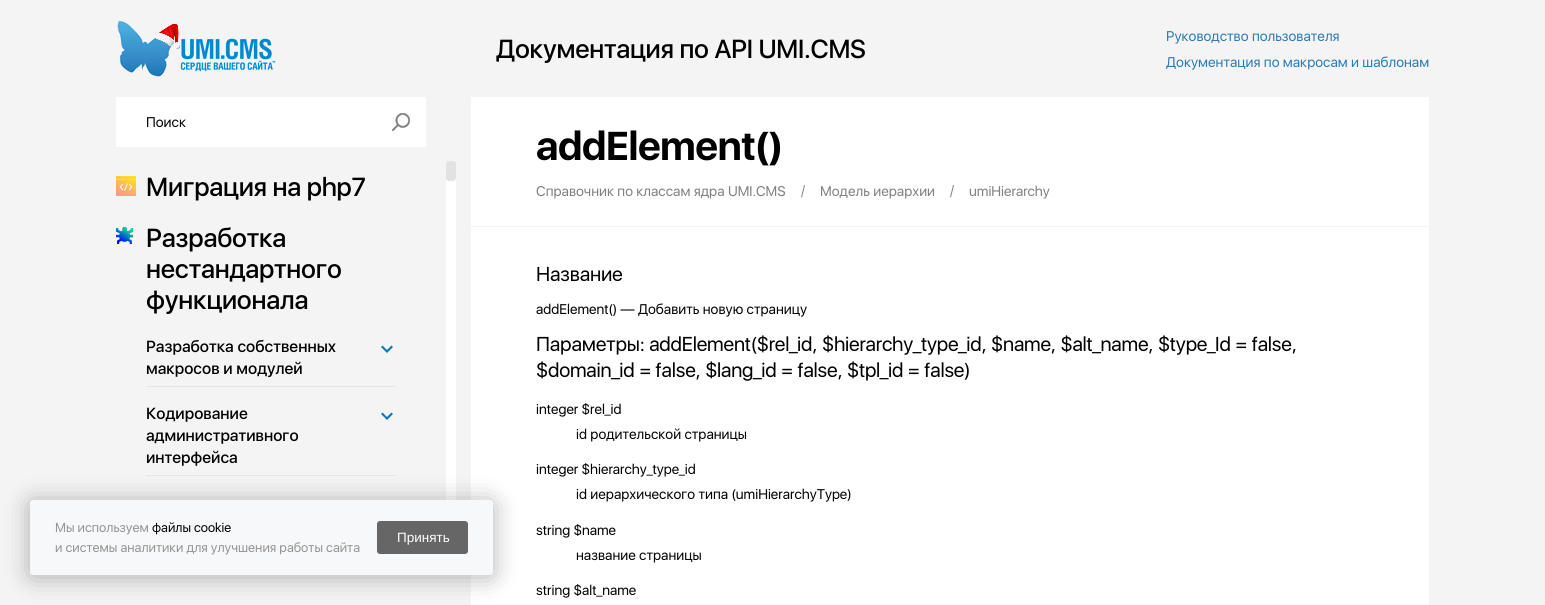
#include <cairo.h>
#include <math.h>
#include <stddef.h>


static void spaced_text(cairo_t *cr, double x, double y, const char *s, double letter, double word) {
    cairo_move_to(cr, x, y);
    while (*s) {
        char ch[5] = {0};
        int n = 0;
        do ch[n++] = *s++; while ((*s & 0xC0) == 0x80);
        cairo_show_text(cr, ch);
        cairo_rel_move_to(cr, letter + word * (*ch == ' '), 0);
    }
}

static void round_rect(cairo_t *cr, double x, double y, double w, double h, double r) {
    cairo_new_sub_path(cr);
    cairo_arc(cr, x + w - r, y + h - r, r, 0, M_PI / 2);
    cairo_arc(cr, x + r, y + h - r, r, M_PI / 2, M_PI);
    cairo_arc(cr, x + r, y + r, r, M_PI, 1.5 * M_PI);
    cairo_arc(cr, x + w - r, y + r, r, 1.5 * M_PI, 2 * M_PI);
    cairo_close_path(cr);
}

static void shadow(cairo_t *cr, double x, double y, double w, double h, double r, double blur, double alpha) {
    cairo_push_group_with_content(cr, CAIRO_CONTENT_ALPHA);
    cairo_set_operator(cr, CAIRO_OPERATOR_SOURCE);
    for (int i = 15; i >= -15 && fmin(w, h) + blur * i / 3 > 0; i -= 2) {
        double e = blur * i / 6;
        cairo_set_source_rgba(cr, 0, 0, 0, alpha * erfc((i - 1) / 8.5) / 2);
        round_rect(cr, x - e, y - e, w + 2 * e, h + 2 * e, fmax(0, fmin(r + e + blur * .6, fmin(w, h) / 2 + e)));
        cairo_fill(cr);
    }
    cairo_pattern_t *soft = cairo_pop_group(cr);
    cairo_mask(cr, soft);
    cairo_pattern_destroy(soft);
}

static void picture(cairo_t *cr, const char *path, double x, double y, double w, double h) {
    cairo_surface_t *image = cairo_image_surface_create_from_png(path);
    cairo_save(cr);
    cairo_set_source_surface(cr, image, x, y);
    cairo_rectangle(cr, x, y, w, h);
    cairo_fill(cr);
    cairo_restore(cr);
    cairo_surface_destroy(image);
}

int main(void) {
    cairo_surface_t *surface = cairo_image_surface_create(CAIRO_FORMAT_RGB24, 1545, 605);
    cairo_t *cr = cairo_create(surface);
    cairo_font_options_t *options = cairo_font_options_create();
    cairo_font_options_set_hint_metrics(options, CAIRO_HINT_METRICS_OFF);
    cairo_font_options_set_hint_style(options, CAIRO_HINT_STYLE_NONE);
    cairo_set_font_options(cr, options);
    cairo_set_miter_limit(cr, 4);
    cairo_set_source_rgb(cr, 0.957, 0.957, 0.957);
    cairo_paint(cr);
    picture(cr, "img1.png", 117, 20, 159, 57);
    cairo_select_font_face(cr, "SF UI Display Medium", CAIRO_FONT_SLANT_NORMAL, CAIRO_FONT_WEIGHT_NORMAL);
    cairo_set_font_size(cr, 26);
    cairo_set_source_rgb(cr, 0, 0, 0);
    spaced_text(cr, 496, 58, "Документация по API UMI.CMS", -0.25, 0);
    cairo_select_font_face(cr, "SF UI Display", CAIRO_FONT_SLANT_NORMAL, CAIRO_FONT_WEIGHT_NORMAL);
    cairo_set_font_size(cr, 14);
    cairo_set_source_rgb(cr, 0.161, 0.478, 0.71);
    cairo_move_to(cr, 1166, 41);
    cairo_show_text(cr, "Руководство пользователя");
    cairo_move_to(cr, 1166, 67);
    cairo_show_text(cr, "Документация по макросам и шаблонам");
    cairo_set_source_rgb(cr, 1, 1, 1);
    cairo_rectangle(cr, 116, 97, 310, 50);
    cairo_fill(cr);
    cairo_set_source_rgb(cr, 0, 0, 0);
    cairo_move_to(cr, 146, 127);
    cairo_show_text(cr, "Поиск");
    picture(cr, "img2.png", 392, 113, 18, 18);
    picture(cr, "img3.png", 116, 176, 20, 20);
    cairo_select_font_face(cr, "SF UI Display Medium", CAIRO_FONT_SLANT_NORMAL, CAIRO_FONT_WEIGHT_NORMAL);
    cairo_set_font_size(cr, 26);
    spaced_text(cr, 146, 196, "Миграция на php7", -0.25, 0);
    picture(cr, "img4.png", 116, 227, 17, 17);
    spaced_text(cr, 146, 247, "Разработка", -0.25, 0);
    spaced_text(cr, 146, 278, "нестандартного", -0.25, 0);
    spaced_text(cr, 146, 309, "функционала", -0.25, 0);
    cairo_set_source_rgb(cr, 0.902, 0.902, 0.902);
    cairo_rectangle(cr, 146, 386, 250, 1);
    cairo_fill(cr);
    cairo_set_font_size(cr, 16);
    cairo_set_source_rgb(cr, 0, 0, 0);
    cairo_move_to(cr, 146, 352);
    cairo_show_text(cr, "Разработка собственных");
    cairo_move_to(cr, 146, 374);
    cairo_show_text(cr, "макросов и модулей");
    picture(cr, "img5.png", 381, 345, 12, 8);
    cairo_set_source_rgb(cr, 0.902, 0.902, 0.902);
    cairo_rectangle(cr, 146, 475, 250, 1);
    cairo_fill(cr);
    cairo_set_source_rgb(cr, 0, 0, 0);
    cairo_move_to(cr, 146, 419);
    cairo_show_text(cr, "Кодирование");
    cairo_move_to(cr, 146, 441);
    cairo_show_text(cr, "административного");
    cairo_move_to(cr, 146, 463);
    cairo_show_text(cr, "интерфейса");
    picture(cr, "img5.png", 381, 412, 12, 8);
    cairo_set_source_rgb(cr, 1, 1, 1);
    round_rect(cr, 446, 161, 10, 381, 5);
    cairo_fill(cr);
    cairo_set_source_rgb(cr, 0.886, 0.886, 0.886);
    round_rect(cr, 446, 161, 10, 20, 3);
    cairo_fill(cr);
    cairo_set_source_rgb(cr, 1, 1, 1);
    cairo_rectangle(cr, 471, 97, 958, 508);
    cairo_fill(cr);
    cairo_set_source_rgb(cr, 0.957, 0.957, 0.957);
    cairo_rectangle(cr, 471, 226, 958, 1);
    cairo_fill(cr);
    cairo_select_font_face(cr, "SF UI Display", CAIRO_FONT_SLANT_NORMAL, CAIRO_FONT_WEIGHT_BOLD);
    cairo_set_font_size(cr, 40);
    cairo_set_source_rgb(cr, 0, 0, 0);
    spaced_text(cr, 536, 160, "addElement()", -0.4, 0);
    cairo_select_font_face(cr, "SF UI Display", CAIRO_FONT_SLANT_NORMAL, CAIRO_FONT_WEIGHT_NORMAL);
    cairo_set_font_size(cr, 14);
    cairo_set_source_rgb(cr, 0.502, 0.502, 0.502);
    cairo_move_to(cr, 536, 196);
    cairo_show_text(cr, "Справочник по классам ядра UMI.CMS");
    cairo_move_to(cr, 801, 195);
    cairo_show_text(cr, "/");
    cairo_move_to(cr, 820, 196);
    cairo_show_text(cr, "Модель иерархии");
    cairo_move_to(cr, 950, 195);
    cairo_show_text(cr, "/");
    cairo_move_to(cr, 969, 196);
    cairo_show_text(cr, "umiHierarchy");
    cairo_set_font_size(cr, 20);
    cairo_set_source_rgb(cr, 0, 0, 0);
    spaced_text(cr, 536, 281, "Название", -0.2, 0);
    cairo_set_font_size(cr, 14);
    cairo_move_to(cr, 536, 314);
    cairo_show_text(cr, "addElement() — Добавить новую страницу");
    cairo_set_font_size(cr, 20);
    spaced_text(cr, 536, 351, "Параметры: addElement($rel_id, $hierarchy_type_id, $name, $alt_name, $type_Id = false,", -0.2, 0);
    spaced_text(cr, 536, 377, "$domain_id = false, $lang_id = false, $tpl_id = false)", -0.2, 0);
    cairo_set_font_size(cr, 14);
    cairo_move_to(cr, 536, 414);
    cairo_show_text(cr, "integer $rel_id");
    cairo_move_to(cr, 576, 439);
    cairo_show_text(cr, "id родительской страницы");
    cairo_move_to(cr, 536, 474);
    cairo_show_text(cr, "integer $hierarchy_type_id");
    cairo_move_to(cr, 576, 499);
    cairo_show_text(cr, "id иерархического типа (umiHierarchyType)");
    cairo_move_to(cr, 536, 535);
    cairo_show_text(cr, "string $name");
    cairo_move_to(cr, 576, 560);
    cairo_show_text(cr, "название страницы");
    cairo_move_to(cr, 536, 595);
    cairo_show_text(cr, "string $alt_name");
    cairo_set_source_rgb(cr, 0, 0, 0);
    shadow(cr, 30, 502, 463, 75, 3, 12.5, 0.3);
    cairo_set_source_rgb(cr, 0.965, 0.969, 0.973);
    round_rect(cr, 30, 500, 463, 75, 3);
    cairo_fill(cr);
    cairo_set_font_size(cr, 13);
    cairo_set_source_rgb(cr, 0.576, 0.576, 0.576);
    cairo_move_to(cr, 55, 532);
    cairo_show_text(cr, "Мы используем");
    cairo_set_source_rgb(cr, 0, 0, 0);
    cairo_move_to(cr, 152, 532);
    cairo_show_text(cr, "файлы cookie");
    cairo_set_source_rgb(cr, 0.576, 0.576, 0.576);
    cairo_move_to(cr, 55, 552);
    cairo_show_text(cr, "и системы аналитики для улучшения работы сайта");
    cairo_set_source_rgb(cr, 0.4, 0.4, 0.4);
    round_rect(cr, 377, 521, 91, 33, 3);
    cairo_fill(cr);
    cairo_select_font_face(cr, "Liberation Sans", CAIRO_FONT_SLANT_NORMAL, CAIRO_FONT_WEIGHT_NORMAL);
    cairo_set_font_size(cr, 13.5);
    cairo_set_source_rgb(cr, 1, 1, 1);
    cairo_move_to(cr, 397, 542);
    cairo_show_text(cr, "Принять");
    cairo_surface_write_to_png(surface, "page.png");
    cairo_font_options_destroy(options);
    cairo_destroy(cr);
    cairo_surface_destroy(surface);
    return 0;
}
